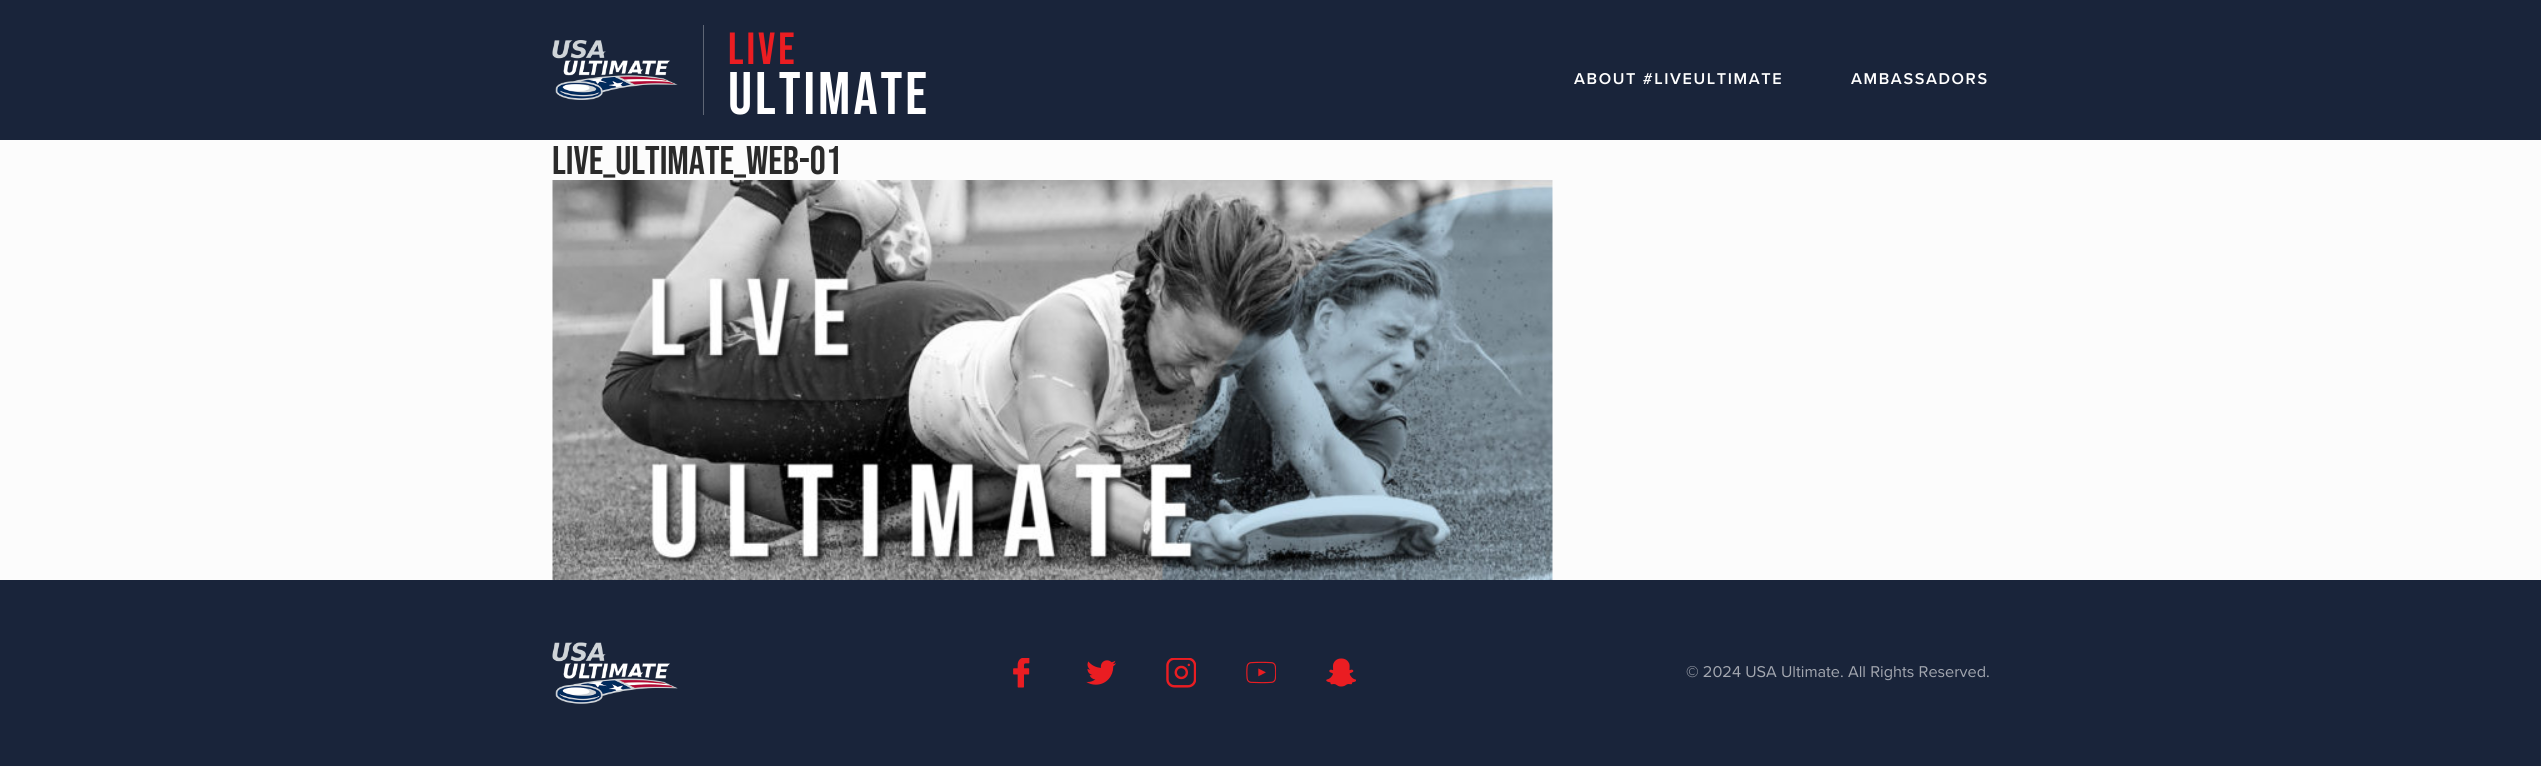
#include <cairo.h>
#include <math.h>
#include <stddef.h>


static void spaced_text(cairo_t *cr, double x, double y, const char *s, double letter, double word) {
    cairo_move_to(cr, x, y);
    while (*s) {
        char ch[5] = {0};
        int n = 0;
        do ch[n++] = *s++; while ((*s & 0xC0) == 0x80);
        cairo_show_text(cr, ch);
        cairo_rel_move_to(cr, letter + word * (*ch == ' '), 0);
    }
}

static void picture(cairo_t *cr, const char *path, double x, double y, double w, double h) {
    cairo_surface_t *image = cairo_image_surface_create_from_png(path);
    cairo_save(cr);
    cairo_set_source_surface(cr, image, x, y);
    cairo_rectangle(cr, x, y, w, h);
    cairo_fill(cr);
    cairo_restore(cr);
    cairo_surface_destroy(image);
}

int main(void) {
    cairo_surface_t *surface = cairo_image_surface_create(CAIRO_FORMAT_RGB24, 2541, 767);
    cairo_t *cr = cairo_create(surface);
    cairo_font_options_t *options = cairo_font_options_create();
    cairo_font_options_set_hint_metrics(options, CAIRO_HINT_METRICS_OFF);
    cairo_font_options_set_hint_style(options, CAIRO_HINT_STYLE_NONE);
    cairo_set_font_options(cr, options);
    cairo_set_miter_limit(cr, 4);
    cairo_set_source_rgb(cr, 0.988, 0.988, 0.988);
    cairo_paint(cr);
    cairo_set_source_rgb(cr, 0.098, 0.141, 0.227);
    cairo_rectangle(cr, 0, 0, 2541, 140);
    cairo_fill(cr);
    picture(cr, "img1.png", 552, 40, 126, 60);
    cairo_set_source_rgb(cr, 0.369, 0.4, 0.459);
    cairo_rectangle(cr, 703, 25, 1, 90);
    cairo_fill(cr);
    cairo_select_font_face(cr, "Bebas Neue", CAIRO_FONT_SLANT_NORMAL, CAIRO_FONT_WEIGHT_NORMAL);
    cairo_set_font_size(cr, 45);
    cairo_set_source_rgb(cr, 0.918, 0.114, 0.133);
    spaced_text(cr, 728, 64, "Live", 3, 0);
    cairo_set_font_size(cr, 60);
    cairo_set_source_rgb(cr, 1, 1, 1);
    spaced_text(cr, 728, 114, "Ultimate", 3, 0);
    cairo_select_font_face(cr, "Proxima Nova SemiBold", CAIRO_FONT_SLANT_NORMAL, CAIRO_FONT_WEIGHT_NORMAL);
    cairo_set_font_size(cr, 16.25);
    spaced_text(cr, 1574, 84, "ABOUT #LIVEULTIMATE", 1.6, 0);
    spaced_text(cr, 1851, 84, "AMBASSADORS", 1.6, 0);
    cairo_select_font_face(cr, "Bebas Neue", CAIRO_FONT_SLANT_NORMAL, CAIRO_FONT_WEIGHT_NORMAL);
    cairo_set_font_size(cr, 40);
    cairo_set_source_rgb(cr, 0.165, 0.165, 0.165);
    cairo_move_to(cr, 552, 174);
    cairo_show_text(cr, "live_ultimate_web-01");
    picture(cr, "img2.png", 552, 180, 1001, 400);
    cairo_set_source_rgb(cr, 0.098, 0.141, 0.227);
    cairo_rectangle(cr, 0, 580, 2541, 186);
    cairo_fill(cr);
    picture(cr, "img3.png", 552, 642, 126, 62);
    picture(cr, "img4.png", 1013, 658, 17, 30);
    picture(cr, "img5.png", 1086, 660, 30, 25);
    picture(cr, "img6.png", 1166, 658, 30, 30);
    picture(cr, "img7.png", 1246, 661, 30, 23);
    picture(cr, "img8.png", 1326, 658, 30, 29);
    cairo_select_font_face(cr, "Proxima Nova", CAIRO_FONT_SLANT_NORMAL, CAIRO_FONT_WEIGHT_NORMAL);
    cairo_set_font_size(cr, 16.25);
    cairo_set_source_rgb(cr, 0.639, 0.655, 0.69);
    cairo_move_to(cr, 1686, 677);
    cairo_show_text(cr, "© 2024 USA Ultimate. All Rights Reserved.");
    cairo_surface_write_to_png(surface, "page.png");
    cairo_font_options_destroy(options);
    cairo_destroy(cr);
    cairo_surface_destroy(surface);
    return 0;
}
